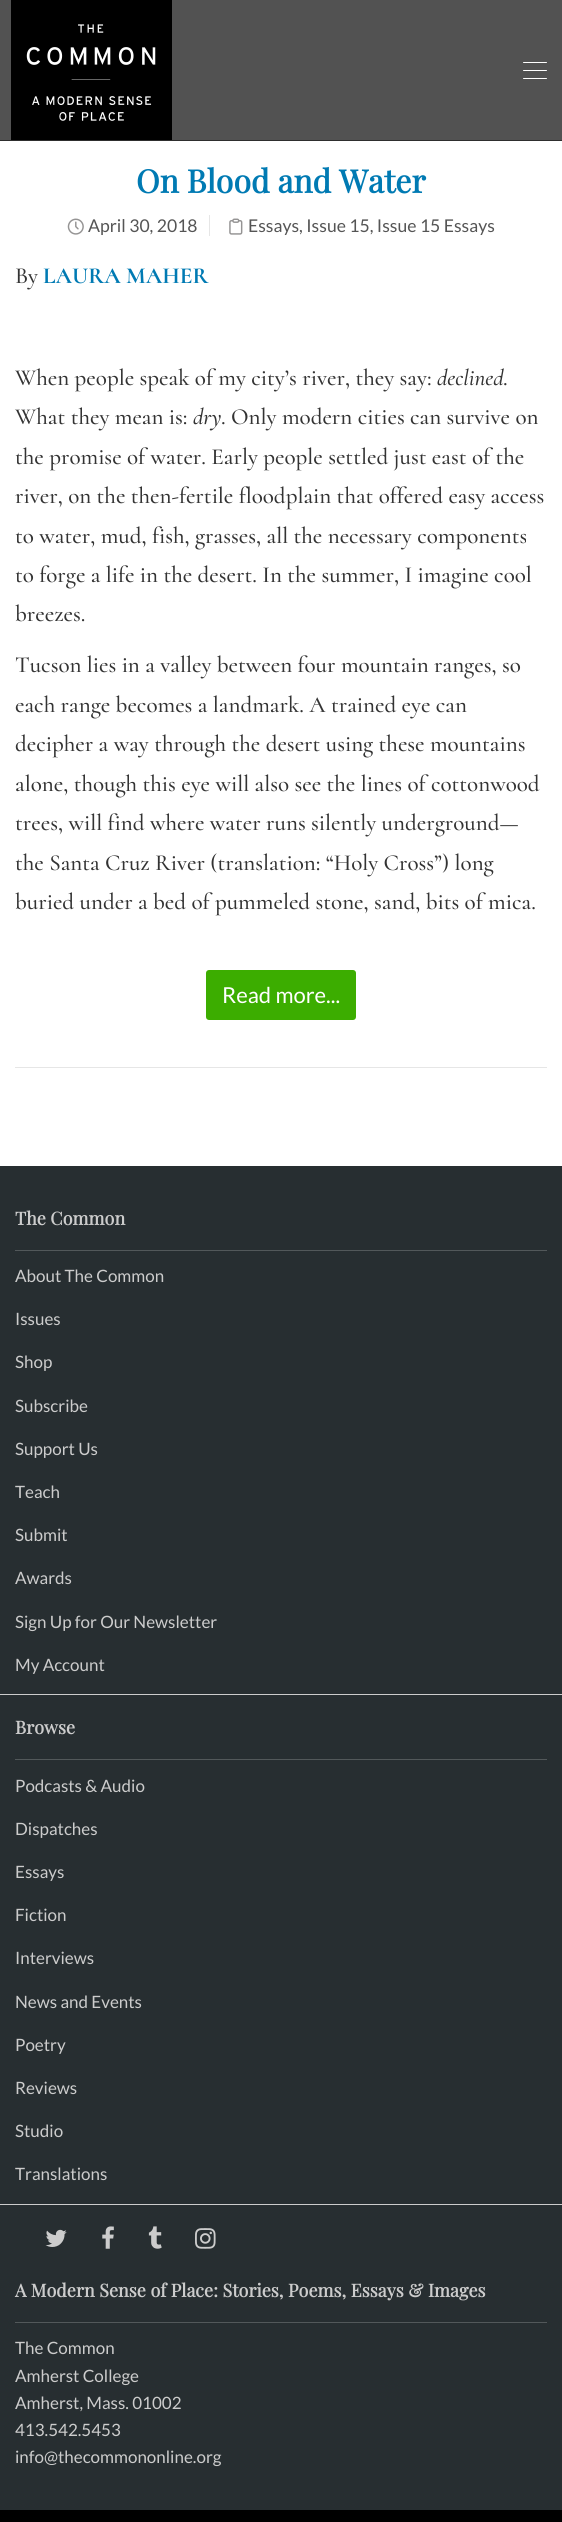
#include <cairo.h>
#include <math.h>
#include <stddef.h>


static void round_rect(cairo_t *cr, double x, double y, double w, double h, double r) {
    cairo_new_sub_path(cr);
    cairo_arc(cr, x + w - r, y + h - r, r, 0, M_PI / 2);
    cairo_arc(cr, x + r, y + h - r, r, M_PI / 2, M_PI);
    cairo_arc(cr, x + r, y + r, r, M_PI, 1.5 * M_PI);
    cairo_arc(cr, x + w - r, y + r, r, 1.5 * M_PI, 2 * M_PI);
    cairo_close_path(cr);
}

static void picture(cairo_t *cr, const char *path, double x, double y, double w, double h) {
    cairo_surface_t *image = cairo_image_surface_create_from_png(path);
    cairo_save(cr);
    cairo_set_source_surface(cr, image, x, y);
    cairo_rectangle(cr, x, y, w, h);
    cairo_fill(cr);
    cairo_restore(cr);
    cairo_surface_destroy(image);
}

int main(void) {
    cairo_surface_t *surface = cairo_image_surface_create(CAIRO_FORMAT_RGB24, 562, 2522);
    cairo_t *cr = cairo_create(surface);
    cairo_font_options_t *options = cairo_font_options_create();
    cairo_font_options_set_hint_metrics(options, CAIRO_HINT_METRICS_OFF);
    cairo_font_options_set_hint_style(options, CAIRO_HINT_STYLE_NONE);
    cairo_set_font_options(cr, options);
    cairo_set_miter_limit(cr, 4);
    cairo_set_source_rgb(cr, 1, 1, 1);
    cairo_paint(cr);
    cairo_set_source_rgb(cr, 0.18, 0.18, 0.18);
    cairo_rectangle(cr, 0, 140, 562, 1);
    cairo_fill(cr);
    cairo_set_source_rgb(cr, 0.322, 0.322, 0.322);
    cairo_rectangle(cr, 0, 0, 562, 140);
    cairo_fill(cr);
    picture(cr, "img1.png", 11, 0, 161, 140);
    cairo_set_source_rgb(cr, 1, 1, 1);
    round_rect(cr, 523, 62, 24, 1, 0.5);
    cairo_fill(cr);
    round_rect(cr, 523, 70, 24, 1, 0.5);
    cairo_fill(cr);
    round_rect(cr, 523, 78, 24, 1, 0.5);
    cairo_fill(cr);
    cairo_select_font_face(cr, "Playfair Display", CAIRO_FONT_SLANT_NORMAL, CAIRO_FONT_WEIGHT_BOLD);
    cairo_set_font_size(cr, 32);
    cairo_set_source_rgb(cr, 0, 0.478, 0.702);
    cairo_move_to(cr, 136, 193);
    cairo_show_text(cr, "On Blood and Water");
    cairo_set_source_rgb(cr, 0.902, 0.902, 0.902);
    cairo_rectangle(cr, 209, 215, 1, 21);
    cairo_fill(cr);
    picture(cr, "img2.png", 67, 218, 17, 17);
    cairo_select_font_face(cr, "Lato", CAIRO_FONT_SLANT_NORMAL, CAIRO_FONT_WEIGHT_NORMAL);
    cairo_set_font_size(cr, 17.6);
    cairo_set_source_rgb(cr, 0.333, 0.333, 0.333);
    cairo_move_to(cr, 88, 232);
    cairo_show_text(cr, "April 30, 2018");
    picture(cr, "img3.png", 229, 218, 14, 17);
    cairo_move_to(cr, 248, 232);
    cairo_show_text(cr, "Essays, Issue 15, Issue 15 Essays");
    cairo_select_font_face(cr, "Cormorant Medium", CAIRO_FONT_SLANT_NORMAL, CAIRO_FONT_WEIGHT_NORMAL);
    cairo_set_font_size(cr, 23);
    cairo_set_source_rgb(cr, 0.2, 0.2, 0.2);
    cairo_move_to(cr, 15, 283);
    cairo_show_text(cr, "By");
    cairo_select_font_face(cr, "Cormorant", CAIRO_FONT_SLANT_NORMAL, CAIRO_FONT_WEIGHT_BOLD);
    cairo_set_source_rgb(cr, 0, 0.478, 0.702);
    cairo_move_to(cr, 43, 283);
    cairo_show_text(cr, "LAURA MAHER");
    cairo_select_font_face(cr, "Cormorant Medium", CAIRO_FONT_SLANT_NORMAL, CAIRO_FONT_WEIGHT_NORMAL);
    cairo_set_source_rgb(cr, 0.2, 0.2, 0.2);
    cairo_move_to(cr, 15, 385);
    cairo_show_text(cr, "When people speak of my city’s river, they say:");
    cairo_select_font_face(cr, "Cormorant Medium", CAIRO_FONT_SLANT_ITALIC, CAIRO_FONT_WEIGHT_NORMAL);
    cairo_move_to(cr, 437, 385);
    cairo_show_text(cr, "declined");
    cairo_select_font_face(cr, "Cormorant Medium", CAIRO_FONT_SLANT_NORMAL, CAIRO_FONT_WEIGHT_NORMAL);
    cairo_move_to(cr, 503, 385);
    cairo_show_text(cr, ".");
    cairo_move_to(cr, 15, 424);
    cairo_show_text(cr, "What they mean is:");
    cairo_select_font_face(cr, "Cormorant Medium", CAIRO_FONT_SLANT_ITALIC, CAIRO_FONT_WEIGHT_NORMAL);
    cairo_move_to(cr, 193, 424);
    cairo_show_text(cr, "dry");
    cairo_select_font_face(cr, "Cormorant Medium", CAIRO_FONT_SLANT_NORMAL, CAIRO_FONT_WEIGHT_NORMAL);
    cairo_move_to(cr, 221, 424);
    cairo_show_text(cr, ". Only modern cities can survive on");
    cairo_move_to(cr, 15, 464);
    cairo_show_text(cr, "the promise of water. Early people settled just east of the");
    cairo_move_to(cr, 15, 503);
    cairo_show_text(cr, "river, on the then-fertile floodplain that offered easy access");
    cairo_move_to(cr, 15, 543);
    cairo_show_text(cr, "to water, mud, fish, grasses, all the necessary components");
    cairo_move_to(cr, 15, 582);
    cairo_show_text(cr, "to forge a life in the desert. In the summer, I imagine cool");
    cairo_move_to(cr, 15, 621);
    cairo_show_text(cr, "breezes.");
    cairo_move_to(cr, 15, 672);
    cairo_show_text(cr, "Tucson lies in a valley between four mountain ranges, so");
    cairo_move_to(cr, 15, 712);
    cairo_show_text(cr, "each range becomes a landmark. A trained eye can");
    cairo_move_to(cr, 15, 751);
    cairo_show_text(cr, "decipher a way through the desert using these mountains");
    cairo_move_to(cr, 15, 791);
    cairo_show_text(cr, "alone, though this eye will also see the lines of cottonwood");
    cairo_move_to(cr, 15, 830);
    cairo_show_text(cr, "trees, will find where water runs silently underground—");
    cairo_move_to(cr, 15, 870);
    cairo_show_text(cr, "the Santa Cruz River (translation: “Holy Cross”) long");
    cairo_move_to(cr, 15, 909);
    cairo_show_text(cr, "buried under a bed of pummeled stone, sand, bits of mica.");
    cairo_set_source_rgb(cr, 0.235, 0.678, 0);
    round_rect(cr, 206, 970, 150, 50, 3);
    cairo_fill(cr);
    cairo_select_font_face(cr, "Lato", CAIRO_FONT_SLANT_NORMAL, CAIRO_FONT_WEIGHT_NORMAL);
    cairo_set_font_size(cr, 22);
    cairo_set_source_rgb(cr, 1, 1, 1);
    cairo_move_to(cr, 222, 1003);
    cairo_show_text(cr, "Read more...");
    cairo_set_source_rgb(cr, 0.902, 0.902, 0.902);
    cairo_rectangle(cr, 15, 1067, 532, 1);
    cairo_fill(cr);
    cairo_set_source_rgb(cr, 0.153, 0.18, 0.192);
    cairo_rectangle(cr, 0, 1166, 562, 1344);
    cairo_fill(cr);
    cairo_set_source_rgb(cr, 0.8, 0.8, 0.8);
    cairo_rectangle(cr, 0, 1694, 562, 1);
    cairo_fill(cr);
    cairo_set_source_rgb(cr, 0.322, 0.345, 0.353);
    cairo_rectangle(cr, 15, 1250, 532, 1);
    cairo_fill(cr);
    cairo_select_font_face(cr, "Playfair Display", CAIRO_FONT_SLANT_NORMAL, CAIRO_FONT_WEIGHT_BOLD);
    cairo_set_font_size(cr, 18);
    cairo_set_source_rgb(cr, 0.8, 0.8, 0.8);
    cairo_move_to(cr, 15, 1225);
    cairo_show_text(cr, "The Common");
    cairo_select_font_face(cr, "Lato", CAIRO_FONT_SLANT_NORMAL, CAIRO_FONT_WEIGHT_NORMAL);
    cairo_set_font_size(cr, 17);
    cairo_move_to(cr, 15, 1282);
    cairo_show_text(cr, "About The Common");
    cairo_move_to(cr, 15, 1325);
    cairo_show_text(cr, "Issues");
    cairo_move_to(cr, 15, 1368);
    cairo_show_text(cr, "Shop");
    cairo_move_to(cr, 15, 1412);
    cairo_show_text(cr, "Subscribe");
    cairo_move_to(cr, 15, 1455);
    cairo_show_text(cr, "Support Us");
    cairo_move_to(cr, 15, 1498);
    cairo_show_text(cr, "Teach");
    cairo_move_to(cr, 15, 1541);
    cairo_show_text(cr, "Submit");
    cairo_move_to(cr, 15, 1584);
    cairo_show_text(cr, "Awards");
    cairo_move_to(cr, 15, 1628);
    cairo_show_text(cr, "Sign Up for Our Newsletter");
    cairo_move_to(cr, 15, 1671);
    cairo_show_text(cr, "My Account");
    cairo_rectangle(cr, 0, 2204, 562, 1);
    cairo_fill(cr);
    cairo_set_source_rgb(cr, 0.322, 0.345, 0.353);
    cairo_rectangle(cr, 15, 1759, 532, 1);
    cairo_fill(cr);
    cairo_select_font_face(cr, "Playfair Display", CAIRO_FONT_SLANT_NORMAL, CAIRO_FONT_WEIGHT_BOLD);
    cairo_set_font_size(cr, 18);
    cairo_set_source_rgb(cr, 0.8, 0.8, 0.8);
    cairo_move_to(cr, 15, 1734);
    cairo_show_text(cr, "Browse");
    cairo_select_font_face(cr, "Lato", CAIRO_FONT_SLANT_NORMAL, CAIRO_FONT_WEIGHT_NORMAL);
    cairo_set_font_size(cr, 17);
    cairo_move_to(cr, 15, 1792);
    cairo_show_text(cr, "Podcasts & Audio");
    cairo_move_to(cr, 15, 1835);
    cairo_show_text(cr, "Dispatches");
    cairo_move_to(cr, 15, 1878);
    cairo_show_text(cr, "Essays");
    cairo_move_to(cr, 15, 1921);
    cairo_show_text(cr, "Fiction");
    cairo_move_to(cr, 15, 1964);
    cairo_show_text(cr, "Interviews");
    cairo_move_to(cr, 15, 2008);
    cairo_show_text(cr, "News and Events");
    cairo_move_to(cr, 15, 2051);
    cairo_show_text(cr, "Poetry");
    cairo_move_to(cr, 15, 2094);
    cairo_show_text(cr, "Reviews");
    cairo_move_to(cr, 15, 2137);
    cairo_show_text(cr, "Studio");
    cairo_move_to(cr, 15, 2180);
    cairo_show_text(cr, "Translations");
    picture(cr, "img4.png", 45, 2229, 22, 18);
    picture(cr, "img5.png", 102, 2226, 12, 23);
    picture(cr, "img6.png", 148, 2226, 14, 23);
    picture(cr, "img7.png", 195, 2228, 21, 21);
    cairo_set_source_rgb(cr, 0.322, 0.345, 0.353);
    cairo_rectangle(cr, 15, 2322, 532, 1);
    cairo_fill(cr);
    cairo_select_font_face(cr, "Playfair Display", CAIRO_FONT_SLANT_NORMAL, CAIRO_FONT_WEIGHT_BOLD);
    cairo_set_font_size(cr, 18);
    cairo_set_source_rgb(cr, 0.8, 0.8, 0.8);
    cairo_move_to(cr, 15, 2297);
    cairo_show_text(cr, "A Modern Sense of Place: Stories, Poems, Essays & Images");
    cairo_select_font_face(cr, "Lato", CAIRO_FONT_SLANT_NORMAL, CAIRO_FONT_WEIGHT_NORMAL);
    cairo_set_font_size(cr, 17);
    cairo_move_to(cr, 15, 2354);
    cairo_show_text(cr, "The Common");
    cairo_move_to(cr, 15, 2382);
    cairo_show_text(cr, "Amherst College");
    cairo_move_to(cr, 15, 2409);
    cairo_show_text(cr, "Amherst, Mass. 01002");
    cairo_move_to(cr, 15, 2436);
    cairo_show_text(cr, "413.542.5453");
    cairo_move_to(cr, 15, 2463);
    cairo_show_text(cr, "info@thecommononline.org");
    cairo_set_source_rgb(cr, 0, 0, 0);
    cairo_rectangle(cr, 0, 2510, 562, 12);
    cairo_fill(cr);
    cairo_surface_write_to_png(surface, "page.png");
    cairo_font_options_destroy(options);
    cairo_destroy(cr);
    cairo_surface_destroy(surface);
    return 0;
}
